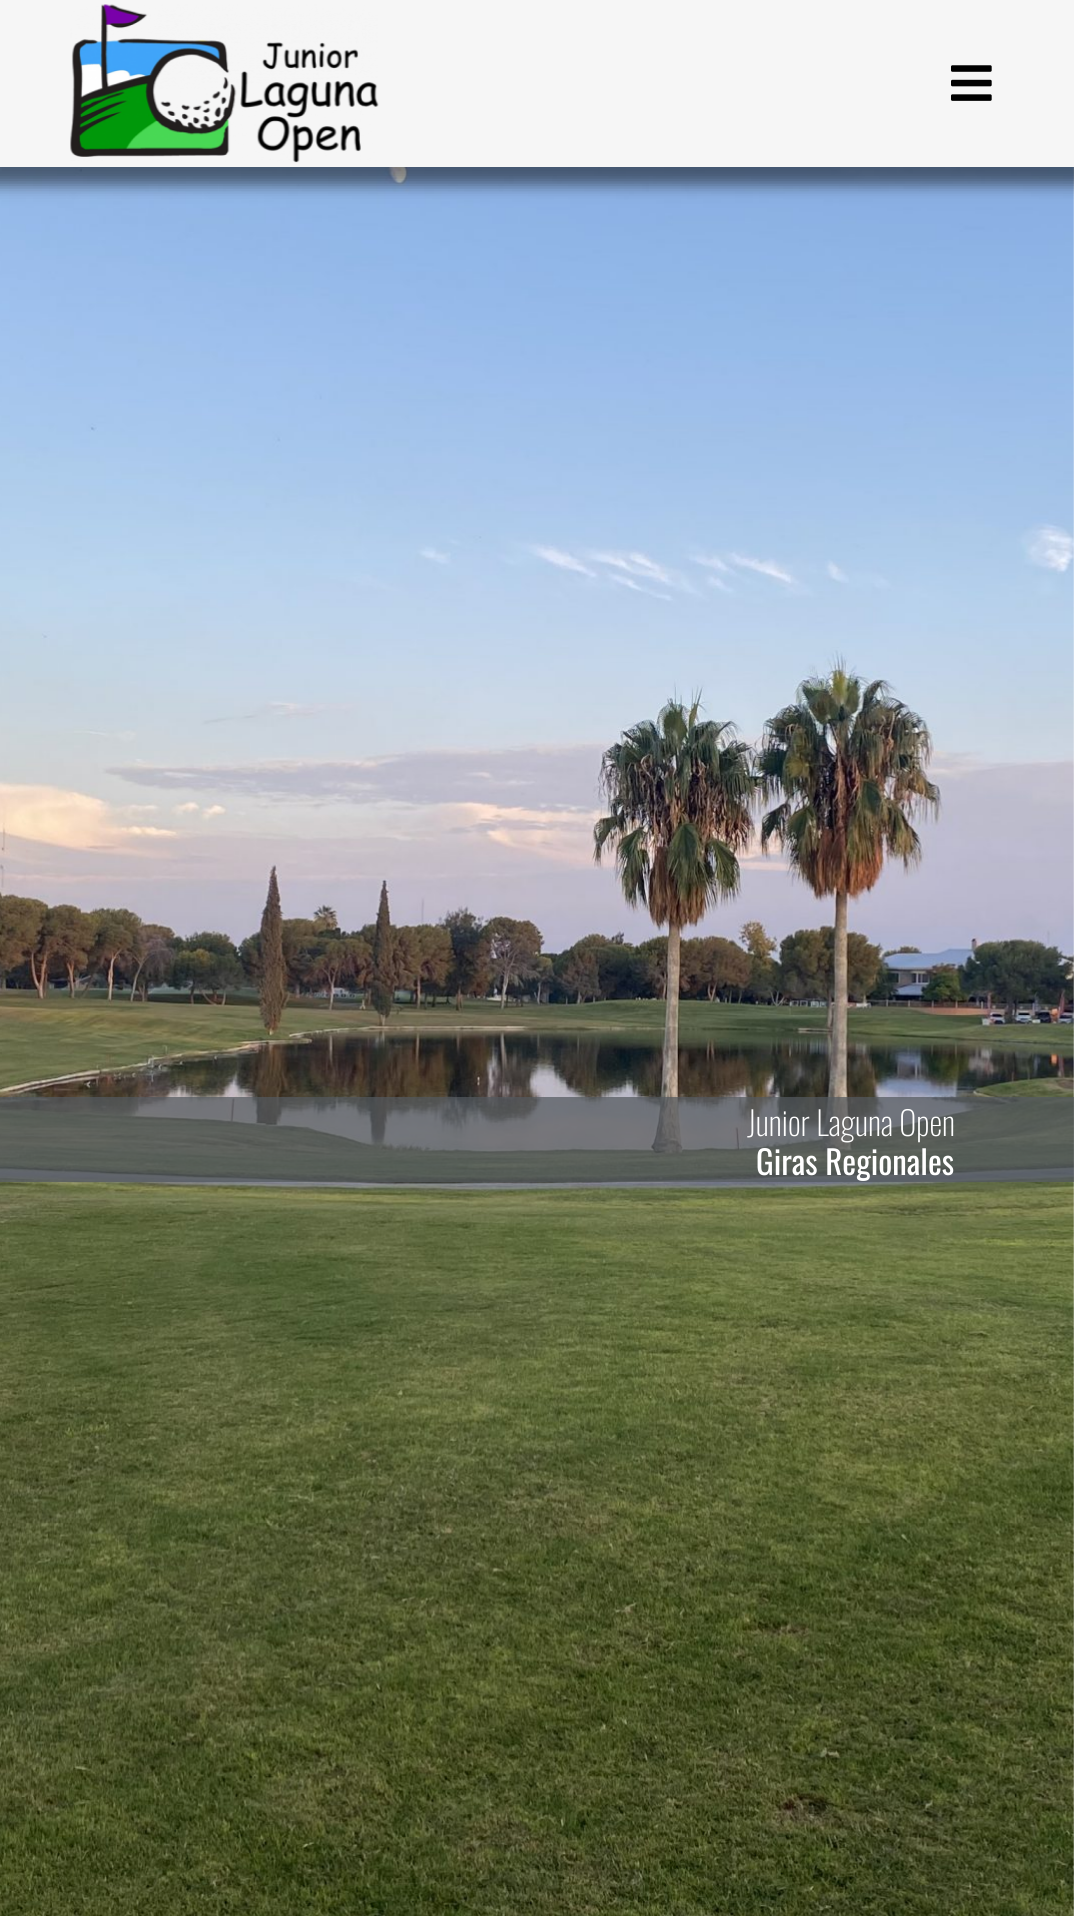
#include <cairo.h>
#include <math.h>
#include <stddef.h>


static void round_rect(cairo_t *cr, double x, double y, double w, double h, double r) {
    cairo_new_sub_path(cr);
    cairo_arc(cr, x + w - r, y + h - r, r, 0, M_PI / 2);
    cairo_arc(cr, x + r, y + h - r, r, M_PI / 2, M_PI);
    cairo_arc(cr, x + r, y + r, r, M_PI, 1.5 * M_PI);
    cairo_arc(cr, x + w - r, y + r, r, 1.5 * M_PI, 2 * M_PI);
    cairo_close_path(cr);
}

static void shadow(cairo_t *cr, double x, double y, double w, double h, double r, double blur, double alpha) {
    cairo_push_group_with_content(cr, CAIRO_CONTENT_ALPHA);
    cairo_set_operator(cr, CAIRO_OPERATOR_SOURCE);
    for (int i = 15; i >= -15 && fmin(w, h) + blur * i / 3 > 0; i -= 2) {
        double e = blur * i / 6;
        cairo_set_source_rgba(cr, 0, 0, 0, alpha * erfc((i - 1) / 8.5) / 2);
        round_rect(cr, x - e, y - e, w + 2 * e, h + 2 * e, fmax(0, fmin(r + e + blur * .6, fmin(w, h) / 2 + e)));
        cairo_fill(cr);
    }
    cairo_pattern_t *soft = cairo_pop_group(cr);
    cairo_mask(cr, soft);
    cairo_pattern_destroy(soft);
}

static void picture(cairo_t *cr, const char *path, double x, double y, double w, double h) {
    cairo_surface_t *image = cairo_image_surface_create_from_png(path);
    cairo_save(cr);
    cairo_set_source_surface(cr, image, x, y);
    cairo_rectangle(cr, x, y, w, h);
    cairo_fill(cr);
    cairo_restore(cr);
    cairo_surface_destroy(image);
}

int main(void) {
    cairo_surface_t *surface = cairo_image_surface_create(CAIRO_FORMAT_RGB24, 1074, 1916);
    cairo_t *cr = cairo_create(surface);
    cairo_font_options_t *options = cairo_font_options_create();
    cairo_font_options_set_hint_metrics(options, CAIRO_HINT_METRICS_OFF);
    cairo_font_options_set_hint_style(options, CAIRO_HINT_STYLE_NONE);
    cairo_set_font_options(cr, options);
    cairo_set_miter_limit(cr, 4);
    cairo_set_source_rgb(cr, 1, 1, 1);
    cairo_paint(cr);
    picture(cr, "img1.png", 0, 167, 1074, 1749);
    cairo_set_source_rgb(cr, 0, 0, 0);
    shadow(cr, -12, -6, 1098, 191, 0, 7.5, 0.5);
    cairo_set_source_rgb(cr, 0.961, 0.961, 0.961);
    cairo_rectangle(cr, 0, 0, 1074, 167);
    cairo_fill(cr);
    picture(cr, "img2.png", 70, 4, 309, 159);
    picture(cr, "img3.png", 951, 65, 41, 36);
    cairo_set_source_rgba(cr, 0.329, 0.349, 0.373, 0.72);
    cairo_rectangle(cr, 0, 1097, 1074, 85);
    cairo_fill(cr);
    cairo_select_font_face(cr, "Oswald ExtraLight", CAIRO_FONT_SLANT_NORMAL, CAIRO_FONT_WEIGHT_NORMAL);
    cairo_set_font_size(cr, 33);
    cairo_set_source_rgb(cr, 1, 1, 1);
    cairo_move_to(cr, 747, 1136);
    cairo_show_text(cr, "Junior Laguna Open");
    cairo_select_font_face(cr, "Oswald", CAIRO_FONT_SLANT_NORMAL, CAIRO_FONT_WEIGHT_NORMAL);
    cairo_move_to(cr, 756, 1175);
    cairo_show_text(cr, "Giras Regionales");
    cairo_surface_write_to_png(surface, "page.png");
    cairo_font_options_destroy(options);
    cairo_destroy(cr);
    cairo_surface_destroy(surface);
    return 0;
}
